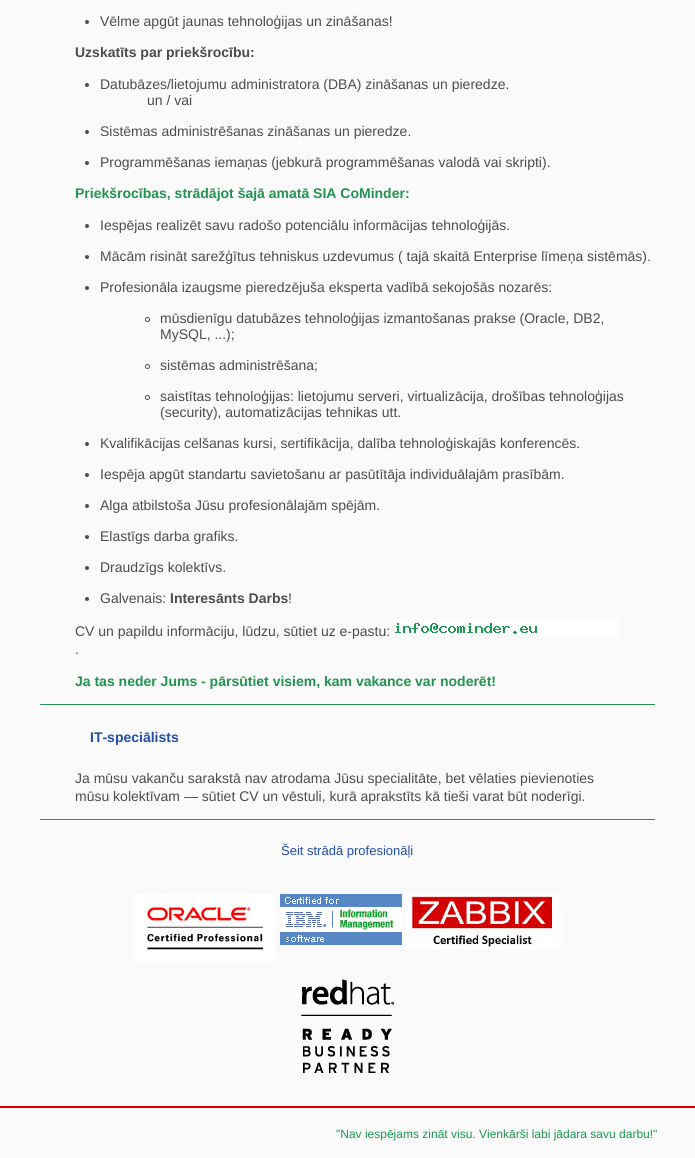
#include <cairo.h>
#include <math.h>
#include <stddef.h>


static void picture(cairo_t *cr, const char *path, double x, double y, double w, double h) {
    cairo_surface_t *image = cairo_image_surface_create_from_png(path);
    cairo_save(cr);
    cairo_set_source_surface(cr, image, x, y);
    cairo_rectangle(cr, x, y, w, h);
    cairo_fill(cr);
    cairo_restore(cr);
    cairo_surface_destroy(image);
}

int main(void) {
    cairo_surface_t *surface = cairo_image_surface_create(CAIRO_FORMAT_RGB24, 695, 1158);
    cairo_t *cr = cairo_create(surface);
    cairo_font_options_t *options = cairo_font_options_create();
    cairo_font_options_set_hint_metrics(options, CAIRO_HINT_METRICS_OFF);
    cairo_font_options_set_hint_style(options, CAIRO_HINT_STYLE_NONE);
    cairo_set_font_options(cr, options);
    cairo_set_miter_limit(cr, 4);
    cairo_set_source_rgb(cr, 0.98, 0.98, 0.98);
    cairo_paint(cr);
    cairo_set_source_rgb(cr, 0.302, 0.302, 0.302);
    cairo_arc(cr, 87, 22, 2, 0, 2 * M_PI);
    cairo_fill(cr);
    cairo_select_font_face(cr, "Liberation Sans", CAIRO_FONT_SLANT_NORMAL, CAIRO_FONT_WEIGHT_NORMAL);
    cairo_set_font_size(cr, 14);
    cairo_move_to(cr, 100, 26);
    cairo_show_text(cr, "Vēlme apgūt jaunas tehnoloģijas un zināšanas!");
    cairo_select_font_face(cr, "Liberation Sans", CAIRO_FONT_SLANT_NORMAL, CAIRO_FONT_WEIGHT_BOLD);
    cairo_move_to(cr, 75, 57);
    cairo_show_text(cr, "Uzskatīts par priekšrocību:");
    cairo_new_path(cr);
    cairo_arc(cr, 87, 85, 2, 0, 2 * M_PI);
    cairo_fill(cr);
    cairo_select_font_face(cr, "Liberation Sans", CAIRO_FONT_SLANT_NORMAL, CAIRO_FONT_WEIGHT_NORMAL);
    cairo_move_to(cr, 100, 89);
    cairo_show_text(cr, "Datubāzes/lietojumu administratora (DBA) zināšanas un pieredze.");
    cairo_move_to(cr, 147, 105);
    cairo_show_text(cr, "un / vai");
    cairo_new_path(cr);
    cairo_arc(cr, 87, 132, 2, 0, 2 * M_PI);
    cairo_fill(cr);
    cairo_move_to(cr, 100, 136);
    cairo_show_text(cr, "Sistēmas administrēšanas zināšanas un pieredze.");
    cairo_new_path(cr);
    cairo_arc(cr, 87, 163, 2, 0, 2 * M_PI);
    cairo_fill(cr);
    cairo_move_to(cr, 100, 167);
    cairo_show_text(cr, "Programmēšanas iemaņas (jebkurā programmēšanas valodā vai skripti).");
    cairo_select_font_face(cr, "Liberation Sans", CAIRO_FONT_SLANT_NORMAL, CAIRO_FONT_WEIGHT_BOLD);
    cairo_set_source_rgb(cr, 0.125, 0.58, 0.314);
    cairo_move_to(cr, 75, 198);
    cairo_show_text(cr, "Priekšrocības, strādājot šajā amatā SIA CoMinder:");
    cairo_set_source_rgb(cr, 0.302, 0.302, 0.302);
    cairo_new_path(cr);
    cairo_arc(cr, 87, 226, 2, 0, 2 * M_PI);
    cairo_fill(cr);
    cairo_select_font_face(cr, "Liberation Sans", CAIRO_FONT_SLANT_NORMAL, CAIRO_FONT_WEIGHT_NORMAL);
    cairo_move_to(cr, 100, 230);
    cairo_show_text(cr, "Iespējas realizēt savu radošo potenciālu informācijas tehnoloģijās.");
    cairo_new_path(cr);
    cairo_arc(cr, 87, 257, 2, 0, 2 * M_PI);
    cairo_fill(cr);
    cairo_move_to(cr, 100, 261);
    cairo_show_text(cr, "Mācām risināt sarežģītus tehniskus uzdevumus ( tajā skaitā Enterprise līmeņa sistēmās).");
    cairo_new_path(cr);
    cairo_arc(cr, 87, 288, 2, 0, 2 * M_PI);
    cairo_fill(cr);
    cairo_move_to(cr, 100, 292);
    cairo_show_text(cr, "Profesionāla izaugsme pieredzējuša eksperta vadībā sekojošās nozarēs:");
    cairo_new_path(cr);
    cairo_arc(cr, 147.5, 319.5, 2, 0, 2 * M_PI);
    cairo_set_line_width(cr, 1);
    cairo_stroke(cr);
    cairo_move_to(cr, 160, 323);
    cairo_show_text(cr, "mūsdienīgu datubāzes tehnoloģijas izmantošanas prakse (Oracle, DB2,");
    cairo_move_to(cr, 160, 339);
    cairo_show_text(cr, "MySQL, ...);");
    cairo_new_path(cr);
    cairo_arc(cr, 147.5, 366.5, 2, 0, 2 * M_PI);
    cairo_stroke(cr);
    cairo_move_to(cr, 160, 370);
    cairo_show_text(cr, "sistēmas administrēšana;");
    cairo_new_path(cr);
    cairo_arc(cr, 147.5, 397.5, 2, 0, 2 * M_PI);
    cairo_stroke(cr);
    cairo_move_to(cr, 160, 401);
    cairo_show_text(cr, "saistītas tehnoloģijas: lietojumu serveri, virtualizācija, drošības tehnoloģijas");
    cairo_move_to(cr, 160, 417);
    cairo_show_text(cr, "(security), automatizācijas tehnikas utt.");
    cairo_new_path(cr);
    cairo_arc(cr, 87, 444, 2, 0, 2 * M_PI);
    cairo_fill(cr);
    cairo_move_to(cr, 100, 448);
    cairo_show_text(cr, "Kvalifikācijas celšanas kursi, sertifikācija, dalība tehnoloģiskajās konferencēs.");
    cairo_new_path(cr);
    cairo_arc(cr, 87, 475, 2, 0, 2 * M_PI);
    cairo_fill(cr);
    cairo_move_to(cr, 100, 479);
    cairo_show_text(cr, "Iespēja apgūt standartu savietošanu ar pasūtītāja individuālajām prasībām.");
    cairo_new_path(cr);
    cairo_arc(cr, 87, 506, 2, 0, 2 * M_PI);
    cairo_fill(cr);
    cairo_move_to(cr, 100, 510);
    cairo_show_text(cr, "Alga atbilstoša Jūsu profesionālajām spējām.");
    cairo_new_path(cr);
    cairo_arc(cr, 87, 537, 2, 0, 2 * M_PI);
    cairo_fill(cr);
    cairo_move_to(cr, 100, 541);
    cairo_show_text(cr, "Elastīgs darba grafiks.");
    cairo_new_path(cr);
    cairo_arc(cr, 87, 568, 2, 0, 2 * M_PI);
    cairo_fill(cr);
    cairo_move_to(cr, 100, 572);
    cairo_show_text(cr, "Draudzīgs kolektīvs.");
    cairo_new_path(cr);
    cairo_arc(cr, 87, 599, 2, 0, 2 * M_PI);
    cairo_fill(cr);
    cairo_move_to(cr, 100, 603);
    cairo_show_text(cr, "Galvenais:");
    cairo_select_font_face(cr, "Liberation Sans", CAIRO_FONT_SLANT_NORMAL, CAIRO_FONT_WEIGHT_BOLD);
    cairo_move_to(cr, 170, 603);
    cairo_show_text(cr, "Interesānts Darbs");
    cairo_select_font_face(cr, "Liberation Sans", CAIRO_FONT_SLANT_NORMAL, CAIRO_FONT_WEIGHT_NORMAL);
    cairo_move_to(cr, 288, 603);
    cairo_show_text(cr, "!");
    cairo_move_to(cr, 75, 636);
    cairo_show_text(cr, "CV un papildu informāciju, lūdzu, sūtiet uz e-pastu:");
    picture(cr, "img1.png", 394, 620, 224, 16);
    cairo_move_to(cr, 75, 654);
    cairo_show_text(cr, ".");
    cairo_select_font_face(cr, "Liberation Sans", CAIRO_FONT_SLANT_NORMAL, CAIRO_FONT_WEIGHT_BOLD);
    cairo_set_source_rgb(cr, 0.125, 0.58, 0.314);
    cairo_move_to(cr, 75, 686);
    cairo_show_text(cr, "Ja tas neder Jums - pārsūtiet visiem, kam vakance var noderēt!");
    cairo_rectangle(cr, 40, 704, 615, 1);
    cairo_fill(cr);
    cairo_set_source_rgb(cr, 0.129, 0.306, 0.659);
    cairo_move_to(cr, 90, 742);
    cairo_show_text(cr, "IT-speciālists");
    cairo_select_font_face(cr, "Liberation Sans", CAIRO_FONT_SLANT_NORMAL, CAIRO_FONT_WEIGHT_NORMAL);
    cairo_set_source_rgb(cr, 0.302, 0.302, 0.302);
    cairo_move_to(cr, 75, 783);
    cairo_show_text(cr, "Ja mūsu vakanču sarakstā nav atrodama Jūsu specialitāte, bet vēlaties pievienoties");
    cairo_move_to(cr, 75, 801);
    cairo_show_text(cr, "mūsu kolektīvam — sūtiet CV un vēstuli, kurā aprakstīts kā tieši varat būt noderīgi.");
    cairo_set_source_rgb(cr, 0.125, 0.58, 0.314);
    cairo_rectangle(cr, 40, 819, 615, 1);
    cairo_fill(cr);
    cairo_set_font_size(cr, 13);
    cairo_set_source_rgb(cr, 0.129, 0.306, 0.659);
    cairo_move_to(cr, 281, 855);
    cairo_show_text(cr, "Šeit strādā profesionāļi");
    picture(cr, "img2.png", 134, 894, 142, 69);
    picture(cr, "img3.png", 280, 894, 122, 51);
    picture(cr, "img4.png", 405, 894, 156, 55);
    picture(cr, "img5.png", 301, 979, 93, 94);
    cairo_set_source_rgb(cr, 0.867, 0, 0);
    cairo_rectangle(cr, 0, 1106, 695, 2);
    cairo_fill(cr);
    cairo_set_font_size(cr, 12);
    cairo_set_source_rgb(cr, 0.102, 0.592, 0.318);
    cairo_move_to(cr, 336, 1138);
    cairo_show_text(cr, "\"Nav iespējams zināt visu. Vienkārši labi jādara savu darbu!\"");
    cairo_surface_write_to_png(surface, "page.png");
    cairo_font_options_destroy(options);
    cairo_destroy(cr);
    cairo_surface_destroy(surface);
    return 0;
}
